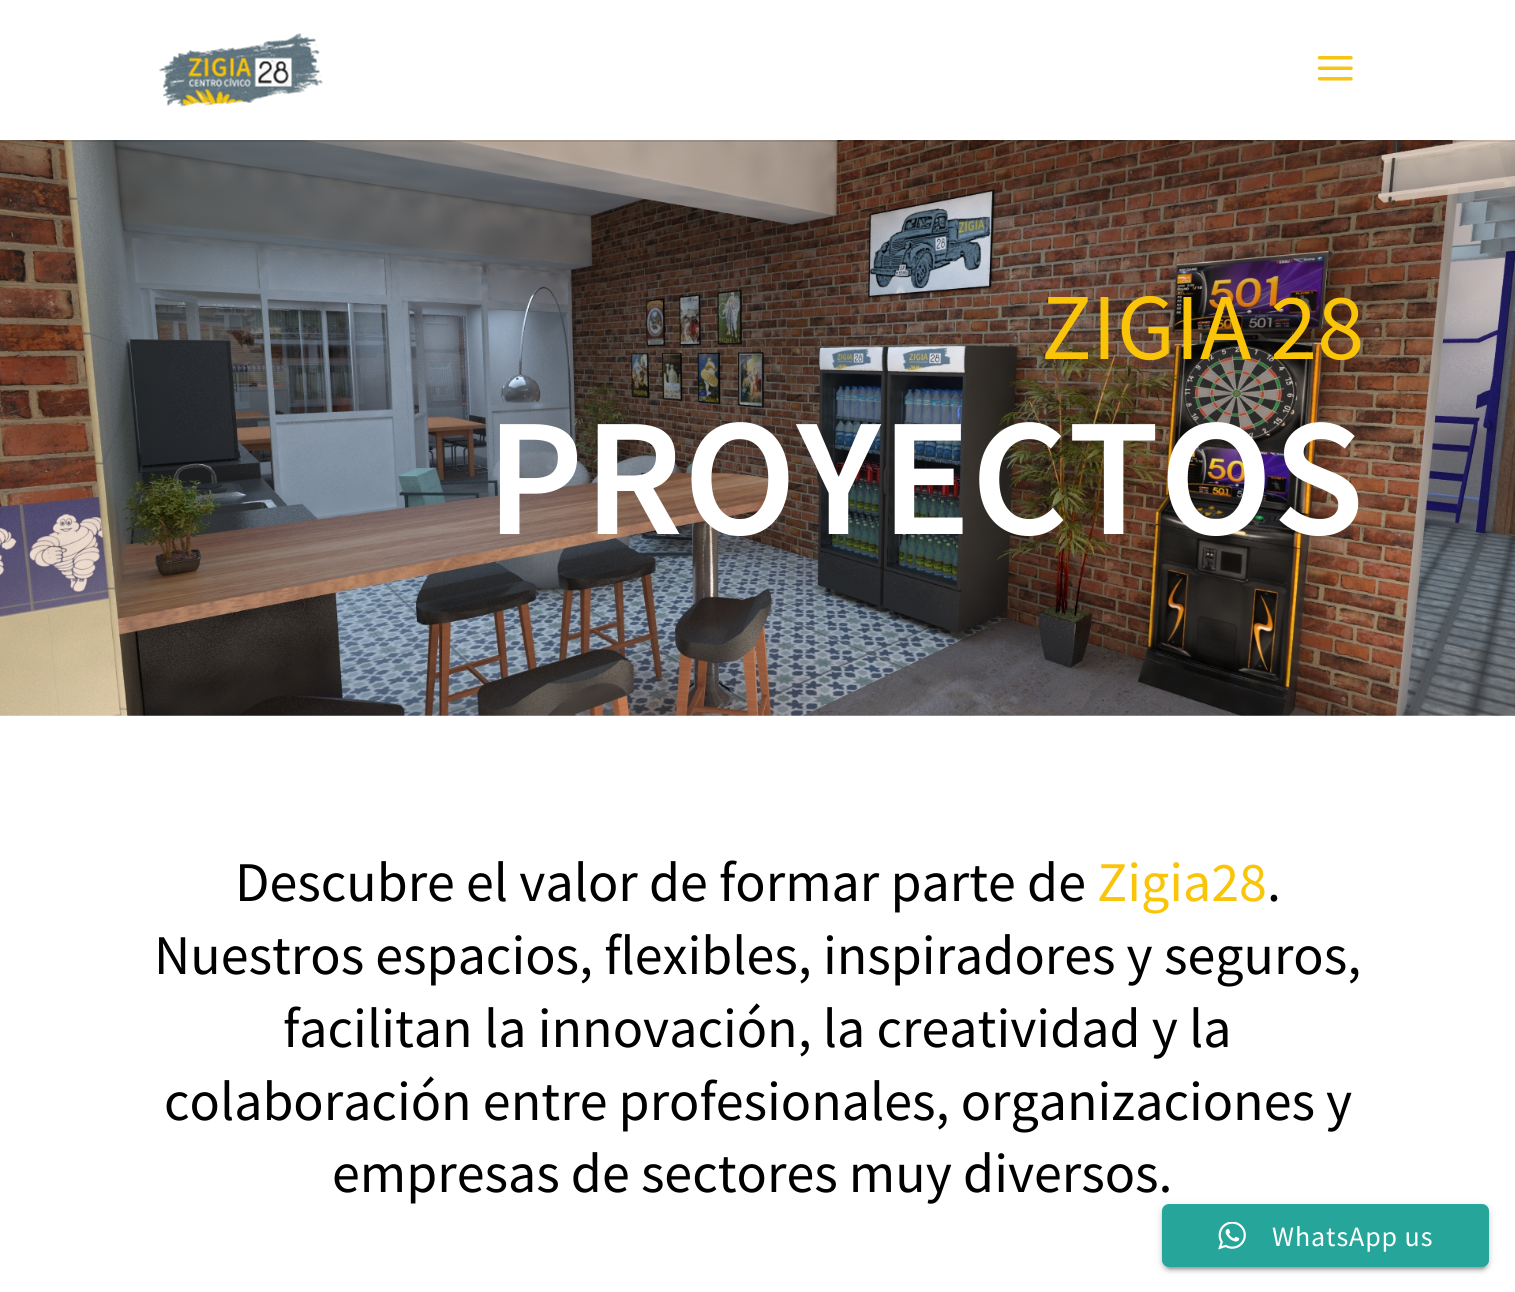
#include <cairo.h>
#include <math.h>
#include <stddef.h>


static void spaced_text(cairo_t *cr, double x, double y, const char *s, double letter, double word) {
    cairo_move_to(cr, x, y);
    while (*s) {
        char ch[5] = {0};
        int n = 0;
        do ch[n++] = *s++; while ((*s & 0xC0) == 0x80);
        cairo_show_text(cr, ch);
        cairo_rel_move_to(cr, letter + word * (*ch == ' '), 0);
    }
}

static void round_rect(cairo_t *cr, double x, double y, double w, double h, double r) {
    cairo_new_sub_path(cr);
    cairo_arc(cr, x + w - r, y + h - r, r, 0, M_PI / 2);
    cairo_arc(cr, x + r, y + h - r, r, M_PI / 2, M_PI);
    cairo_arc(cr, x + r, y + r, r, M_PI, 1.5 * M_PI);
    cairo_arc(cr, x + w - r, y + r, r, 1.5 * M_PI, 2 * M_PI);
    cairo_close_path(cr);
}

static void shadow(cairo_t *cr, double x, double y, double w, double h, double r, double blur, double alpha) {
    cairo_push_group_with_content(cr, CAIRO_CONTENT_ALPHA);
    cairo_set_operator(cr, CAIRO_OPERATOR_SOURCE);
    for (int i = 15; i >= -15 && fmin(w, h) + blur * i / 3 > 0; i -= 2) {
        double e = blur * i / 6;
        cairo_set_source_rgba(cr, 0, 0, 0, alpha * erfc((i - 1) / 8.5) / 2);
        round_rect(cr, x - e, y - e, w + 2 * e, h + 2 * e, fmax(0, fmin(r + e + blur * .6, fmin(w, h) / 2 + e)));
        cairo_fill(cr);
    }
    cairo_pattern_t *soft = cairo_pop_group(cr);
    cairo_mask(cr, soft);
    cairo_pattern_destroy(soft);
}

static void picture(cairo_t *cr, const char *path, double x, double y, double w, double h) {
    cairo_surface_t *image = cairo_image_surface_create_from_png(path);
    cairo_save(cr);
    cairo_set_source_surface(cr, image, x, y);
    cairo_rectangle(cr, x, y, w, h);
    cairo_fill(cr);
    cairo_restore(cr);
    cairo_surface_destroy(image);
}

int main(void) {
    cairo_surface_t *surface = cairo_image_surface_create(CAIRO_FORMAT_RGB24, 1515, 1292);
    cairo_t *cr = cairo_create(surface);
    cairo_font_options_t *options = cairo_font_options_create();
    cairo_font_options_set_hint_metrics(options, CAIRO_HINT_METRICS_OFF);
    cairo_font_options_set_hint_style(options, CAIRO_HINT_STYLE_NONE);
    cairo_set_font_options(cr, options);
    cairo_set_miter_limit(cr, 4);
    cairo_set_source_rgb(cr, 1, 1, 1);
    cairo_paint(cr);
    picture(cr, "img3.png", 0, 140, 1515, 576);
    cairo_set_source_rgba(cr, 0, 0, 0, 0.1);
    cairo_new_path(cr);
    cairo_move_to(cr, 0, 140);
    cairo_line_to(cr, 0, 142);
    cairo_line_to(cr, 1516, 142);
    cairo_line_to(cr, 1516, 2);
    cairo_line_to(cr, 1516, 140);
    cairo_close_path(cr);
    cairo_fill(cr);
    picture(cr, "img1.png", 159, 33, 164, 74);
    picture(cr, "img2.png", 1317, 56, 36, 25);
    cairo_select_font_face(cr, "Source Sans Pro", CAIRO_FONT_SLANT_NORMAL, CAIRO_FONT_WEIGHT_NORMAL);
    cairo_set_font_size(cr, 94.5);
    cairo_set_source_rgb(cr, 0.98, 0.769, 0.039);
    cairo_move_to(cr, 1041, 359);
    cairo_show_text(cr, "ZIGIA 28");
    cairo_select_font_face(cr, "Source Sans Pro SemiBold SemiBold", CAIRO_FONT_SLANT_NORMAL, CAIRO_FONT_WEIGHT_NORMAL);
    cairo_set_font_size(cr, 168);
    cairo_set_source_rgb(cr, 1, 1, 1);
    cairo_move_to(cr, 486, 534);
    cairo_show_text(cr, "PROYECTOS");
    cairo_select_font_face(cr, "Source Sans Pro", CAIRO_FONT_SLANT_NORMAL, CAIRO_FONT_WEIGHT_NORMAL);
    cairo_set_font_size(cr, 56);
    cairo_set_source_rgb(cr, 0, 0, 0);
    cairo_move_to(cr, 235, 901);
    cairo_show_text(cr, "Descubre el valor de formar parte de");
    cairo_set_source_rgb(cr, 0.98, 0.769, 0.039);
    cairo_move_to(cr, 1097, 901);
    cairo_show_text(cr, "Zigia28");
    cairo_set_source_rgb(cr, 0, 0, 0);
    cairo_move_to(cr, 1267, 901);
    cairo_show_text(cr, ".");
    cairo_move_to(cr, 154, 974);
    cairo_show_text(cr, "Nuestros espacios, flexibles, inspiradores y seguros,");
    cairo_move_to(cr, 283, 1047);
    cairo_show_text(cr, "facilitan la innovación, la creatividad y la");
    cairo_move_to(cr, 164, 1120);
    cairo_show_text(cr, "colaboración entre profesionales, organizaciones y");
    cairo_move_to(cr, 332, 1192);
    cairo_show_text(cr, "empresas de sectores muy diversos.");
    cairo_set_source_rgb(cr, 0, 0, 0);
    shadow(cr, 1166, 1213, 320, 56, 4, 1, 0.2);
    shadow(cr, 1162, 1206, 327, 63, 7, 4.5, 0.12);
    shadow(cr, 1162, 1208, 327, 63, 7, 2, 0.14);
    cairo_set_source_rgb(cr, 0.149, 0.651, 0.604);
    round_rect(cr, 1162, 1204, 327, 63, 7);
    cairo_fill(cr);
    picture(cr, "img4.png", 1218, 1222, 28, 28);
    cairo_set_font_size(cr, 28);
    cairo_set_source_rgb(cr, 1, 1, 1);
    spaced_text(cr, 1272, 1246, "WhatsApp us", 0.9, 0);
    cairo_surface_write_to_png(surface, "page.png");
    cairo_font_options_destroy(options);
    cairo_destroy(cr);
    cairo_surface_destroy(surface);
    return 0;
}
